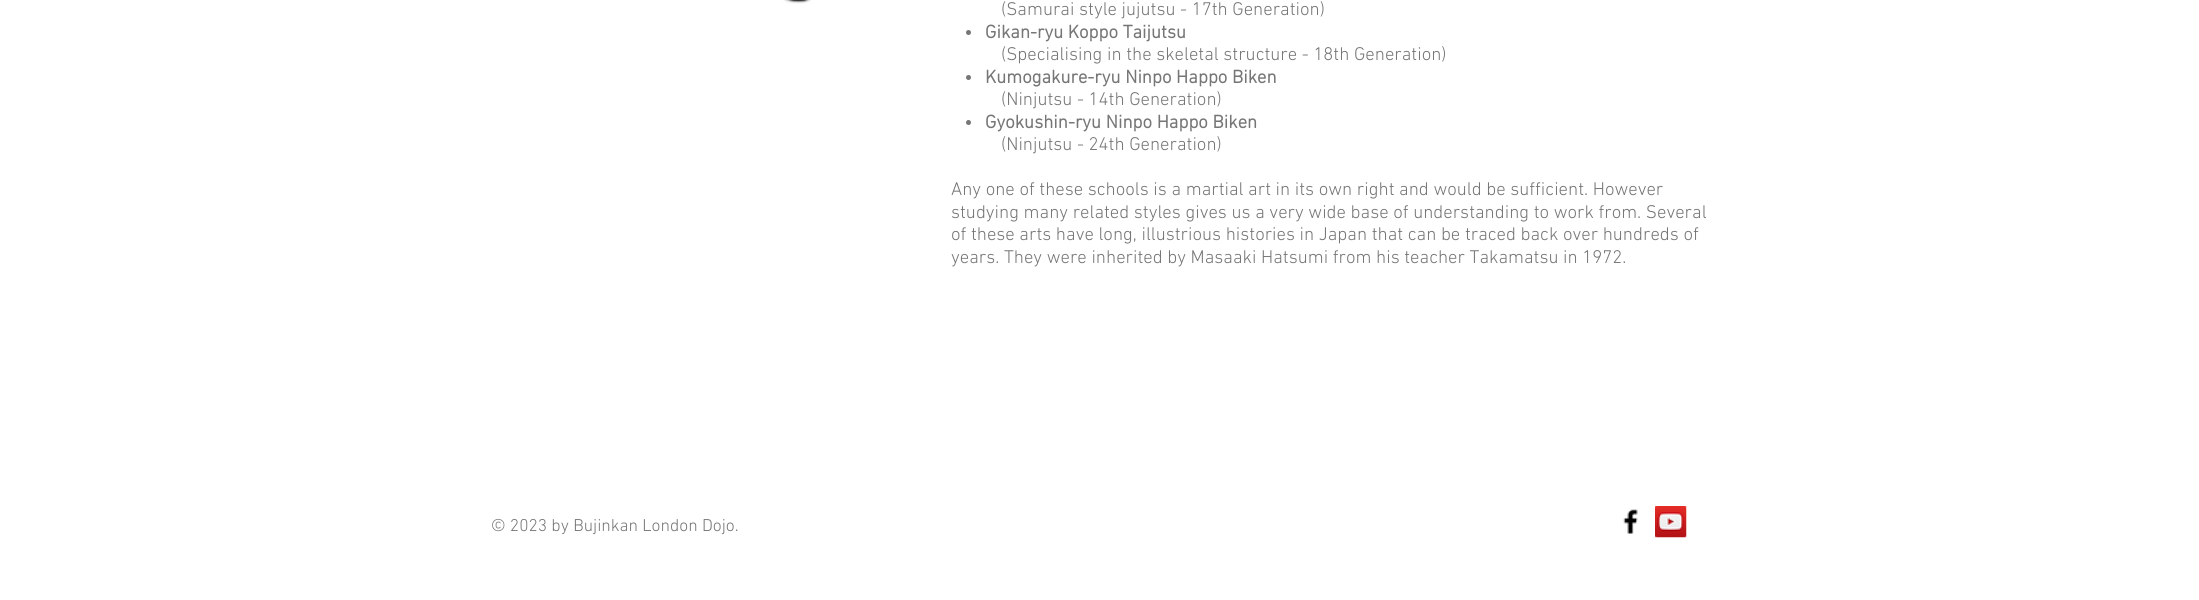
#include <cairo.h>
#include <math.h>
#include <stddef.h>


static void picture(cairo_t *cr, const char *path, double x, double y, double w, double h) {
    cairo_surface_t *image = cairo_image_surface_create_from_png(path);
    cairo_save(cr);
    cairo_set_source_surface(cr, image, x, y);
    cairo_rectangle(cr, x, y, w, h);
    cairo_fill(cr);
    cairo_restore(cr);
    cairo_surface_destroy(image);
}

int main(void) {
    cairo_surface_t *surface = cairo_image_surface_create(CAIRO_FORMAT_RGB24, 2199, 600);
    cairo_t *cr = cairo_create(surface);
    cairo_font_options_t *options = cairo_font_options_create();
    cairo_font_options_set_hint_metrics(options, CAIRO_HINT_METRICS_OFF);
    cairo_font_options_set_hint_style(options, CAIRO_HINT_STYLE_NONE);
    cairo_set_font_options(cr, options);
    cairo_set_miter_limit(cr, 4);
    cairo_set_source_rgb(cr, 1, 1, 1);
    cairo_paint(cr);
    picture(cr, "img1.png", 783, 0, 28, 4);
    cairo_select_font_face(cr, "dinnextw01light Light", CAIRO_FONT_SLANT_NORMAL, CAIRO_FONT_WEIGHT_NORMAL);
    cairo_set_font_size(cr, 18.75);
    cairo_set_source_rgb(cr, 0.463, 0.463, 0.463);
    cairo_move_to(cr, 1001, 15);
    cairo_show_text(cr, "(Samurai style jujutsu - 17th Generation)");
    cairo_new_path(cr);
    cairo_arc(cr, 968.5, 32.5, 2.5, 0, 2 * M_PI);
    cairo_fill(cr);
    cairo_select_font_face(cr, "dinnextw01light", CAIRO_FONT_SLANT_NORMAL, CAIRO_FONT_WEIGHT_BOLD);
    cairo_move_to(cr, 985, 38);
    cairo_show_text(cr, "Gikan-ryu Koppo Taijutsu");
    cairo_select_font_face(cr, "dinnextw01light Light", CAIRO_FONT_SLANT_NORMAL, CAIRO_FONT_WEIGHT_NORMAL);
    cairo_move_to(cr, 1001, 60);
    cairo_show_text(cr, "(Specialising in the skeletal structure - 18th Generation)");
    cairo_new_path(cr);
    cairo_arc(cr, 968.5, 77.5, 2.5, 0, 2 * M_PI);
    cairo_fill(cr);
    cairo_select_font_face(cr, "dinnextw01light", CAIRO_FONT_SLANT_NORMAL, CAIRO_FONT_WEIGHT_BOLD);
    cairo_move_to(cr, 985, 83);
    cairo_show_text(cr, "Kumogakure-ryu Ninpo Happo Biken");
    cairo_select_font_face(cr, "dinnextw01light Light", CAIRO_FONT_SLANT_NORMAL, CAIRO_FONT_WEIGHT_NORMAL);
    cairo_move_to(cr, 1001, 105);
    cairo_show_text(cr, "(Ninjutsu - 14th Generation)");
    cairo_new_path(cr);
    cairo_arc(cr, 968.5, 122.5, 2.5, 0, 2 * M_PI);
    cairo_fill(cr);
    cairo_select_font_face(cr, "dinnextw01light", CAIRO_FONT_SLANT_NORMAL, CAIRO_FONT_WEIGHT_BOLD);
    cairo_move_to(cr, 985, 128);
    cairo_show_text(cr, "Gyokushin-ryu Ninpo Happo Biken");
    cairo_select_font_face(cr, "dinnextw01light Light", CAIRO_FONT_SLANT_NORMAL, CAIRO_FONT_WEIGHT_NORMAL);
    cairo_move_to(cr, 1001, 150);
    cairo_show_text(cr, "(Ninjutsu - 24th Generation)");
    cairo_move_to(cr, 951, 195);
    cairo_show_text(cr, "Any one of these schools is a martial art in its own right and would be sufficient. However");
    cairo_move_to(cr, 951, 218);
    cairo_show_text(cr, "studying many related styles gives us a very wide base of understanding to work from. Several");
    cairo_move_to(cr, 951, 240);
    cairo_show_text(cr, "of these arts have long, illustrious histories in Japan that can be traced back over hundreds of");
    cairo_move_to(cr, 951, 263);
    cairo_show_text(cr, "years. They were inherited by Masaaki Hatsumi from his teacher Takamatsu in 1972.");
    cairo_set_font_size(cr, 17.5);
    cairo_move_to(cr, 491, 531);
    cairo_show_text(cr, "© 2023 by Bujinkan London Dojo.");
    picture(cr, "img2.png", 1623, 509, 15, 25);
    picture(cr, "img3.png", 1655, 506, 32, 32);
    cairo_surface_write_to_png(surface, "page.png");
    cairo_font_options_destroy(options);
    cairo_destroy(cr);
    cairo_surface_destroy(surface);
    return 0;
}
